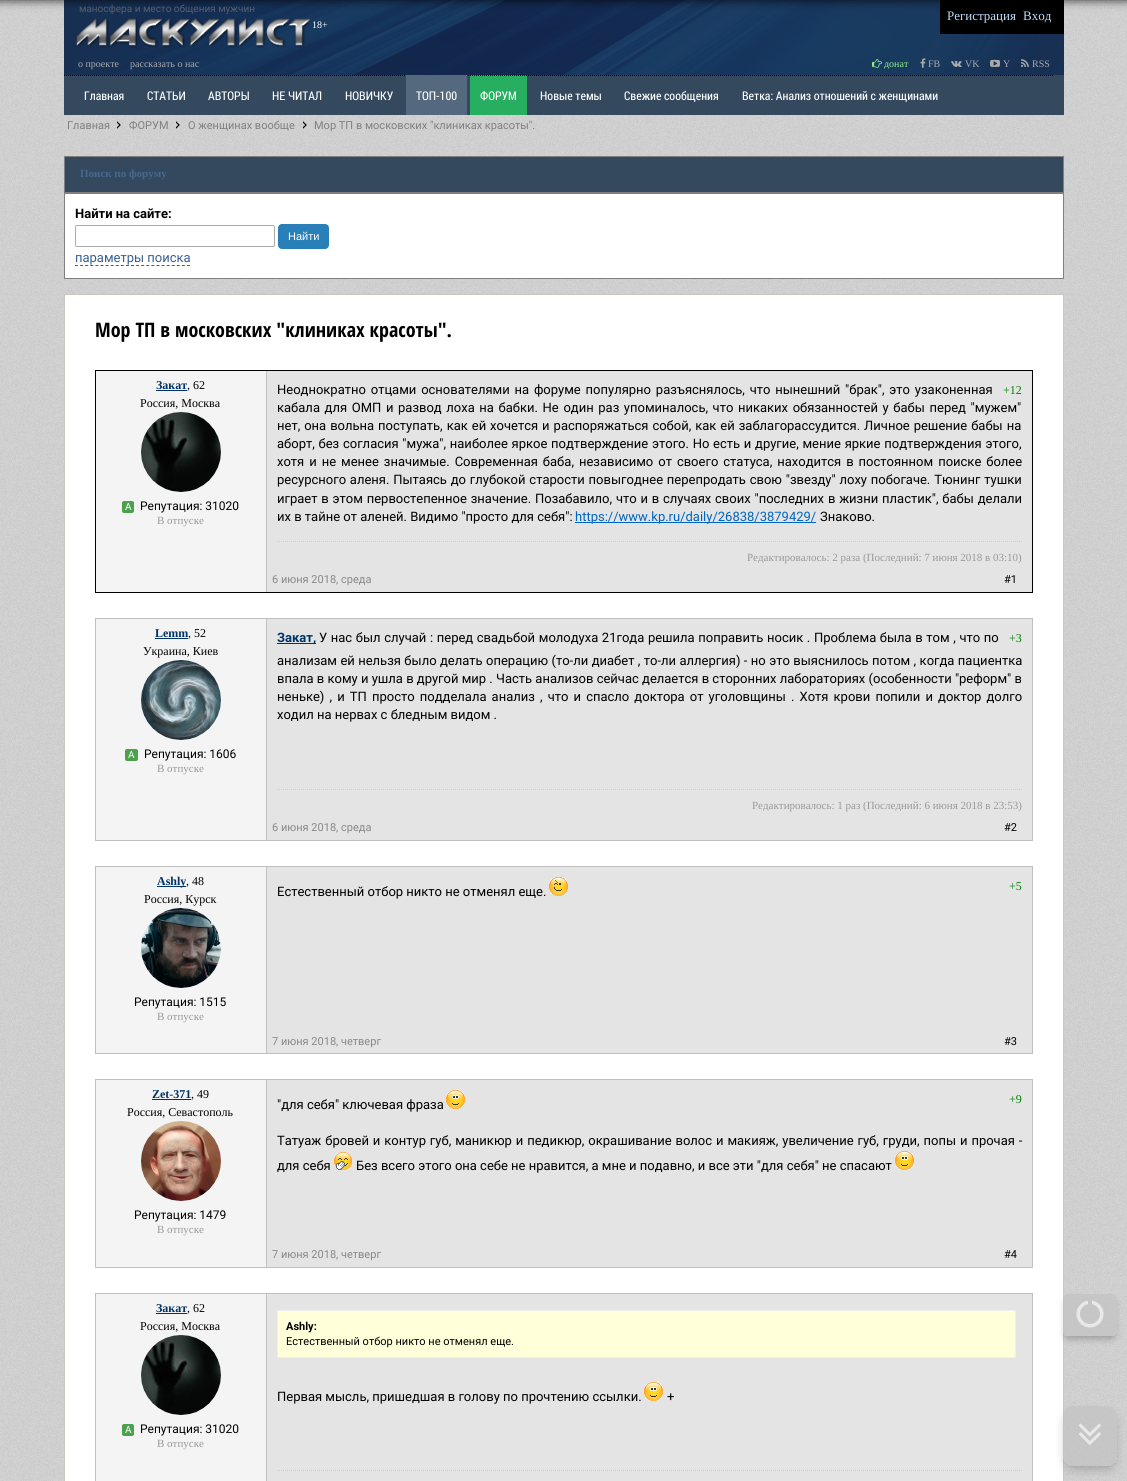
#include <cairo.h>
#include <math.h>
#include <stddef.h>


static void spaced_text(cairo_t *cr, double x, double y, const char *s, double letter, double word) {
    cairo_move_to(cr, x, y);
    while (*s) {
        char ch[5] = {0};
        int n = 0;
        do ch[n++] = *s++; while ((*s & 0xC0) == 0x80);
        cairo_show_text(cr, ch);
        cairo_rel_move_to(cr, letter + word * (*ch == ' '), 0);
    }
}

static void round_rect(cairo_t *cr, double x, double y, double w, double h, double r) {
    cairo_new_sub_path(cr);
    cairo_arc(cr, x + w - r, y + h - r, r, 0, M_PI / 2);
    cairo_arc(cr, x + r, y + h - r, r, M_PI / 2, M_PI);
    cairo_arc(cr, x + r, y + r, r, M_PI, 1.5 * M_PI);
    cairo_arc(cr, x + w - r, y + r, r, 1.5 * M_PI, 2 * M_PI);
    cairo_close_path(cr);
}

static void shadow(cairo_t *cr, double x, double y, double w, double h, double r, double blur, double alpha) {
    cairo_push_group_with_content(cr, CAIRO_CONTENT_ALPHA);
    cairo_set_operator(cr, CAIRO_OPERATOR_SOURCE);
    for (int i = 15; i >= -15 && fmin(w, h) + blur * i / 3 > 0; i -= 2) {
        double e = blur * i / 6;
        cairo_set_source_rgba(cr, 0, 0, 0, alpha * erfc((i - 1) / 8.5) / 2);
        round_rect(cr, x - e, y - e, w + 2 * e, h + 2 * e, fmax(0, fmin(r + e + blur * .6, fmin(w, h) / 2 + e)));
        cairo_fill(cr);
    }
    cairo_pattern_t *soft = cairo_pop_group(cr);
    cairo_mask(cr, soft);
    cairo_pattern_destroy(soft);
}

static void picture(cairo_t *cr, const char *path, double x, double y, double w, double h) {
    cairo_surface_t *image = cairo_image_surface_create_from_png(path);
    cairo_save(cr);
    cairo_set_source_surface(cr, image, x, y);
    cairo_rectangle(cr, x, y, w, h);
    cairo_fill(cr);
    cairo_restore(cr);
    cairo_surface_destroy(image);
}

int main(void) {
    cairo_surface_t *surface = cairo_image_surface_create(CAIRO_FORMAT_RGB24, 1127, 1481);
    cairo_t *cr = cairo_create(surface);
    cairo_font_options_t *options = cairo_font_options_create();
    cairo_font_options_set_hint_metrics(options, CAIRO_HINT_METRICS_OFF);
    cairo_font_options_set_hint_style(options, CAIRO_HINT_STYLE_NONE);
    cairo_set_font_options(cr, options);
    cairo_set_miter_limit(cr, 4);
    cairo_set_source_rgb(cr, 1, 1, 1);
    cairo_paint(cr);
    picture(cr, "img1.png", 0, 0, 1127, 1481);
    picture(cr, "img2.png", 64, 0, 1000, 75);
    cairo_set_source_rgb(cr, 0, 0, 0);
    cairo_rectangle(cr, 940, 0, 124, 34);
    cairo_fill(cr);
    cairo_set_source_rgb(cr, 0, 0, 0);
    shadow(cr, -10, -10, 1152, 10, 0, 5, 0.8);
    cairo_select_font_face(cr, "Roboto", CAIRO_FONT_SLANT_NORMAL, CAIRO_FONT_WEIGHT_NORMAL);
    cairo_set_font_size(cr, 10);
    cairo_set_source_rgb(cr, 0.333, 0.373, 0.431);
    cairo_move_to(cr, 79, 12);
    cairo_show_text(cr, "маносфера и место общения мужчин");
    picture(cr, "img3.png", 75, 18, 237, 30);
    cairo_select_font_face(cr, "Liberation Serif", CAIRO_FONT_SLANT_NORMAL, CAIRO_FONT_WEIGHT_NORMAL);
    cairo_set_source_rgb(cr, 1, 1, 1);
    cairo_move_to(cr, 312, 28);
    cairo_show_text(cr, "18+");
    cairo_set_font_size(cr, 13);
    cairo_set_source_rgb(cr, 0.749, 0.871, 1);
    cairo_move_to(cr, 947, 20);
    cairo_show_text(cr, "Регистрация");
    cairo_move_to(cr, 1023, 20);
    cairo_show_text(cr, "Вход");
    cairo_set_source_rgb(cr, 0.204, 0.286, 0.369);
    cairo_rectangle(cr, 64, 75, 1000, 40);
    cairo_fill(cr);
    cairo_set_source_rgb(cr, 0.153, 0.682, 0.376);
    cairo_rectangle(cr, 470, 75, 57, 40);
    cairo_fill(cr);
    cairo_new_path(cr);
    cairo_move_to(cr, 64, 75.5);
    cairo_line_to(cr, 1054, 75.5);
    cairo_set_source_rgb(cr, 0, 0, 0);
    cairo_set_line_width(cr, 1);
    cairo_set_dash(cr, (double[]){1, 1}, 2, 0);
    cairo_stroke(cr);
    cairo_set_font_size(cr, 10);
    cairo_set_source_rgb(cr, 0.663, 0.663, 0.663);
    cairo_move_to(cr, 78, 67);
    cairo_show_text(cr, "о проекте");
    cairo_move_to(cr, 130, 67);
    cairo_show_text(cr, "рассказать о нас");
    picture(cr, "img4.png", 872, 59, 10, 9);
    cairo_set_source_rgb(cr, 0.565, 0.933, 0.565);
    cairo_move_to(cr, 884, 67);
    cairo_show_text(cr, "донат");
    picture(cr, "img5.png", 920, 58, 6, 10);
    cairo_set_source_rgb(cr, 0.663, 0.663, 0.663);
    cairo_move_to(cr, 928, 67);
    cairo_show_text(cr, "FB");
    picture(cr, "img6.png", 951, 60, 11, 7);
    cairo_move_to(cr, 965, 67);
    cairo_show_text(cr, "VK");
    picture(cr, "img7.png", 990, 59, 10, 8);
    cairo_move_to(cr, 1003, 67);
    cairo_show_text(cr, "Y");
    picture(cr, "img8.png", 1021, 59, 8, 8);
    cairo_move_to(cr, 1032, 67);
    cairo_show_text(cr, "RSS");
    cairo_select_font_face(cr, "Roboto Condensed", CAIRO_FONT_SLANT_NORMAL, CAIRO_FONT_WEIGHT_NORMAL);
    cairo_set_font_size(cr, 12);
    cairo_set_source_rgb(cr, 1, 1, 1);
    cairo_move_to(cr, 84, 100);
    cairo_show_text(cr, "Главная");
    cairo_move_to(cr, 147, 100);
    cairo_show_text(cr, "СТАТЬИ");
    cairo_move_to(cr, 208, 100);
    cairo_show_text(cr, "АВТОРЫ");
    cairo_move_to(cr, 272, 100);
    cairo_show_text(cr, "НЕ ЧИТАЛ");
    cairo_move_to(cr, 345, 100);
    cairo_show_text(cr, "НОВИЧКУ");
    cairo_set_source_rgb(cr, 0.329, 0.412, 0.494);
    cairo_rectangle(cr, 406, 75, 61, 40);
    cairo_fill(cr);
    cairo_set_source_rgb(cr, 1, 1, 1);
    cairo_move_to(cr, 416, 100);
    cairo_show_text(cr, "ТОП-100");
    cairo_move_to(cr, 480, 100);
    cairo_show_text(cr, "ФОРУМ");
    cairo_move_to(cr, 540, 100);
    cairo_show_text(cr, "Новые темы");
    cairo_move_to(cr, 624, 100);
    cairo_show_text(cr, "Свежие сообщения");
    cairo_move_to(cr, 742, 100);
    cairo_show_text(cr, "Ветка: Анализ отношений с женщинами");
    cairo_select_font_face(cr, "Roboto", CAIRO_FONT_SLANT_NORMAL, CAIRO_FONT_WEIGHT_NORMAL);
    cairo_set_font_size(cr, 11);
    cairo_set_source_rgb(cr, 0.502, 0.502, 0.502);
    cairo_move_to(cr, 67, 129);
    cairo_show_text(cr, "Главная");
    picture(cr, "img9.png", 117, 121, 4, 8);
    cairo_move_to(cr, 129, 129);
    cairo_show_text(cr, "ФОРУМ");
    picture(cr, "img10.png", 176, 121, 4, 8);
    cairo_move_to(cr, 188, 129);
    cairo_show_text(cr, "О женщинах вообще");
    picture(cr, "img11.png", 303, 121, 4, 8);
    cairo_move_to(cr, 314, 129);
    cairo_show_text(cr, "Мор ТП в московских \"клиниках красоты\".");
    cairo_set_source_rgb(cr, 0.204, 0.286, 0.369);
    cairo_rectangle(cr, 64.5, 156.5, 999, 36);
    cairo_fill_preserve(cr);
    cairo_set_source_rgb(cr, 0.502, 0.502, 0.502);
    cairo_set_dash(cr, NULL, 0, 0);
    cairo_stroke(cr);
    cairo_select_font_face(cr, "Liberation Serif", CAIRO_FONT_SLANT_NORMAL, CAIRO_FONT_WEIGHT_BOLD);
    cairo_set_source_rgb(cr, 0.271, 0.408, 0.557);
    cairo_move_to(cr, 80, 177);
    cairo_show_text(cr, "Поиск по форуму");
    cairo_set_source_rgb(cr, 1, 1, 1);
    cairo_rectangle(cr, 64.5, 193.5, 999, 85);
    cairo_fill_preserve(cr);
    cairo_set_source_rgb(cr, 0.502, 0.502, 0.502);
    cairo_stroke(cr);
    cairo_select_font_face(cr, "Roboto", CAIRO_FONT_SLANT_NORMAL, CAIRO_FONT_WEIGHT_BOLD);
    cairo_set_font_size(cr, 13);
    cairo_set_source_rgb(cr, 0, 0, 0);
    cairo_move_to(cr, 75, 218);
    cairo_show_text(cr, "Найти на сайте:");
    round_rect(cr, 75.5, 225.5, 199, 21, 1.5);
    cairo_set_source_rgb(cr, 0.667, 0.667, 0.667);
    cairo_stroke(cr);
    cairo_set_source_rgb(cr, 0.161, 0.502, 0.725);
    round_rect(cr, 278, 224, 51, 25, 4);
    cairo_fill(cr);
    cairo_select_font_face(cr, "Liberation Sans", CAIRO_FONT_SLANT_NORMAL, CAIRO_FONT_WEIGHT_NORMAL);
    cairo_set_font_size(cr, 11);
    cairo_set_source_rgb(cr, 1, 1, 1);
    cairo_move_to(cr, 288, 240);
    cairo_show_text(cr, "Найти");
    cairo_select_font_face(cr, "Roboto", CAIRO_FONT_SLANT_NORMAL, CAIRO_FONT_WEIGHT_NORMAL);
    cairo_set_font_size(cr, 13);
    cairo_set_source_rgb(cr, 0.216, 0.369, 0.576);
    cairo_move_to(cr, 75, 262);
    cairo_show_text(cr, "параметры поиска");
    cairo_new_path(cr);
    cairo_move_to(cr, 75, 265.5);
    cairo_line_to(cr, 190, 265.5);
    cairo_set_dash(cr, (double[]){3, 2.09}, 2, 0);
    cairo_stroke(cr);
    cairo_set_source_rgb(cr, 1, 1, 1);
    cairo_rectangle(cr, 64.5, 294.5, 999, 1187);
    cairo_fill_preserve(cr);
    cairo_set_source_rgb(cr, 0.784, 0.776, 0.749);
    cairo_set_dash(cr, NULL, 0, 0);
    cairo_stroke(cr);
    cairo_select_font_face(cr, "Open Sans Condensed", CAIRO_FONT_SLANT_NORMAL, CAIRO_FONT_WEIGHT_BOLD);
    cairo_set_font_size(cr, 20);
    cairo_set_source_rgb(cr, 0, 0, 0);
    cairo_move_to(cr, 95, 337);
    cairo_show_text(cr, "Мор ТП в московских \"клиниках красоты\".");
    cairo_set_source_rgb(cr, 0.957, 0.957, 0.957);
    cairo_rectangle(cr, 96, 371, 170, 221);
    cairo_fill(cr);
    cairo_rectangle(cr, 95.5, 370.5, 937, 222);
    cairo_set_source_rgb(cr, 0, 0, 0);
    cairo_stroke(cr);
    cairo_select_font_face(cr, "Liberation Serif", CAIRO_FONT_SLANT_NORMAL, CAIRO_FONT_WEIGHT_BOLD);
    cairo_set_font_size(cr, 12);
    cairo_set_source_rgb(cr, 0, 0.2, 0.4);
    cairo_move_to(cr, 156, 389);
    cairo_show_text(cr, "Закат");
    cairo_rectangle(cr, 156, 390, 31, 1);
    cairo_fill(cr);
    cairo_select_font_face(cr, "Liberation Serif", CAIRO_FONT_SLANT_NORMAL, CAIRO_FONT_WEIGHT_NORMAL);
    cairo_set_source_rgb(cr, 0, 0, 0);
    cairo_move_to(cr, 187, 389);
    cairo_show_text(cr, ", 62");
    cairo_move_to(cr, 140, 407);
    cairo_show_text(cr, "Россия, Москва");
    picture(cr, "img12.png", 141, 412, 80, 80);
    cairo_set_source_rgb(cr, 0.302, 0.631, 0.302);
    round_rect(cr, 122, 501, 12, 12, 2);
    cairo_fill(cr);
    cairo_select_font_face(cr, "Roboto", CAIRO_FONT_SLANT_NORMAL, CAIRO_FONT_WEIGHT_NORMAL);
    cairo_set_font_size(cr, 10);
    cairo_set_source_rgb(cr, 1, 1, 1);
    cairo_move_to(cr, 125, 510);
    cairo_show_text(cr, "А");
    cairo_set_font_size(cr, 12);
    cairo_set_source_rgb(cr, 0, 0, 0);
    cairo_move_to(cr, 140, 510);
    cairo_show_text(cr, "Репутация: 31020");
    cairo_select_font_face(cr, "Liberation Serif", CAIRO_FONT_SLANT_NORMAL, CAIRO_FONT_WEIGHT_NORMAL);
    cairo_set_font_size(cr, 11);
    cairo_set_source_rgb(cr, 0.6, 0.6, 0.6);
    cairo_move_to(cr, 157, 524);
    cairo_show_text(cr, "В отпуске");
    cairo_set_source_rgb(cr, 0.894, 0.894, 0.894);
    cairo_rectangle(cr, 267, 371, 765, 221);
    cairo_fill(cr);
    cairo_set_source_rgb(cr, 0.753, 0.753, 0.753);
    cairo_rectangle(cr, 266, 371, 1, 221);
    cairo_fill(cr);
    cairo_select_font_face(cr, "Roboto", CAIRO_FONT_SLANT_NORMAL, CAIRO_FONT_WEIGHT_NORMAL);
    cairo_set_font_size(cr, 13);
    cairo_set_source_rgb(cr, 0, 0, 0);
    spaced_text(cr, 277, 394, "Неоднократно отцами основателями на форуме популярно разъяснялось, что нынешний \"брак\", это узаконенная", 0, 1.6);
    spaced_text(cr, 277, 412, "кабала для ОМП и развод лоха на бабки. Не один раз упоминалось, что никаких обязанностей у бабы перед \"мужем\"", 0, 1.4);
    spaced_text(cr, 277, 430, "нет, она вольна поступать, как ей хочется и распоряжаться собой, как ей заблагорассудится. Личное решение бабы на", 0, 0.75);
    spaced_text(cr, 277, 448, "аборт, без согласия \"мужа\", наиболее яркое подтверждение этого. Но есть и другие, мение яркие подтверждения этого,", 0, 0.5);
    spaced_text(cr, 277, 466, "хотя и не менее значимые. Современная баба, независимо от своего статуса, находится в постоянном поиске более", 0, 1.75);
    spaced_text(cr, 277, 484, "ресурсного аленя. Пытаясь до глубокой старости повыгоднее перепродать свою \"звезду\" лоху побогаче. Тюнинг тушки", 0, 0.6);
    spaced_text(cr, 277, 503, "играет в этом первостепенное значение. Позабавило, что и в случаях своих \"последних в жизни пластик\", бабы делали", 0, 0.6);
    cairo_move_to(cr, 277, 521);
    cairo_show_text(cr, "их в тайне от аленей. Видимо \"просто для себя\":");
    cairo_set_source_rgb(cr, 0, 0.396, 0.753);
    cairo_rectangle(cr, 575, 522, 241, 1);
    cairo_fill(cr);
    cairo_move_to(cr, 575, 521);
    cairo_show_text(cr, "https://www.kp.ru/daily/26838/3879429/");
    cairo_set_source_rgb(cr, 0, 0, 0);
    cairo_move_to(cr, 820, 521);
    cairo_show_text(cr, "Знаково.");
    cairo_select_font_face(cr, "Liberation Serif", CAIRO_FONT_SLANT_NORMAL, CAIRO_FONT_WEIGHT_NORMAL);
    cairo_set_font_size(cr, 12);
    cairo_set_source_rgb(cr, 0, 0.502, 0);
    cairo_move_to(cr, 1003, 394);
    cairo_show_text(cr, "+12");
    cairo_new_path(cr);
    cairo_move_to(cr, 277, 541.5);
    cairo_line_to(cr, 1022, 541.5);
    cairo_set_source_rgb(cr, 0.8, 0.8, 0.8);
    cairo_set_dash(cr, (double[]){1, 1}, 2, 0);
    cairo_stroke(cr);
    cairo_set_font_size(cr, 11);
    cairo_set_source_rgb(cr, 0.6, 0.6, 0.6);
    cairo_move_to(cr, 747, 561);
    cairo_show_text(cr, "Редактировалось: 2 раза (Последний: 7 июня 2018 в 03:10)");
    cairo_select_font_face(cr, "Roboto", CAIRO_FONT_SLANT_NORMAL, CAIRO_FONT_WEIGHT_NORMAL);
    cairo_set_source_rgb(cr, 0.533, 0.533, 0.533);
    cairo_move_to(cr, 272, 583);
    cairo_show_text(cr, "6 июня 2018, среда");
    cairo_set_source_rgb(cr, 0, 0, 0);
    cairo_move_to(cr, 1004, 583);
    cairo_show_text(cr, "#1");
    cairo_set_source_rgb(cr, 0.957, 0.957, 0.957);
    cairo_rectangle(cr, 96, 619, 170, 221);
    cairo_fill(cr);
    cairo_rectangle(cr, 95.5, 618.5, 937, 222);
    cairo_set_source_rgb(cr, 0.753, 0.753, 0.753);
    cairo_set_dash(cr, NULL, 0, 0);
    cairo_stroke(cr);
    cairo_select_font_face(cr, "Liberation Serif", CAIRO_FONT_SLANT_NORMAL, CAIRO_FONT_WEIGHT_BOLD);
    cairo_set_font_size(cr, 12);
    cairo_set_source_rgb(cr, 0, 0.2, 0.4);
    cairo_move_to(cr, 155, 637);
    cairo_show_text(cr, "Lemm");
    cairo_rectangle(cr, 155, 638, 33, 1);
    cairo_fill(cr);
    cairo_select_font_face(cr, "Liberation Serif", CAIRO_FONT_SLANT_NORMAL, CAIRO_FONT_WEIGHT_NORMAL);
    cairo_set_source_rgb(cr, 0, 0, 0);
    cairo_move_to(cr, 188, 637);
    cairo_show_text(cr, ", 52");
    cairo_move_to(cr, 143, 655);
    cairo_show_text(cr, "Украина, Киев");
    picture(cr, "img13.png", 141, 660, 80, 80);
    cairo_set_source_rgb(cr, 0.302, 0.631, 0.302);
    round_rect(cr, 125, 749, 13, 12, 2);
    cairo_fill(cr);
    cairo_select_font_face(cr, "Roboto", CAIRO_FONT_SLANT_NORMAL, CAIRO_FONT_WEIGHT_NORMAL);
    cairo_set_font_size(cr, 10);
    cairo_set_source_rgb(cr, 1, 1, 1);
    cairo_move_to(cr, 128, 758);
    cairo_show_text(cr, "А");
    cairo_set_font_size(cr, 12);
    cairo_set_source_rgb(cr, 0, 0, 0);
    cairo_move_to(cr, 144, 758);
    cairo_show_text(cr, "Репутация: 1606");
    cairo_select_font_face(cr, "Liberation Serif", CAIRO_FONT_SLANT_NORMAL, CAIRO_FONT_WEIGHT_NORMAL);
    cairo_set_font_size(cr, 11);
    cairo_set_source_rgb(cr, 0.6, 0.6, 0.6);
    cairo_move_to(cr, 157, 772);
    cairo_show_text(cr, "В отпуске");
    cairo_set_source_rgb(cr, 0.894, 0.894, 0.894);
    cairo_rectangle(cr, 267, 619, 765, 221);
    cairo_fill(cr);
    cairo_set_source_rgb(cr, 0.753, 0.753, 0.753);
    cairo_rectangle(cr, 266, 619, 1, 221);
    cairo_fill(cr);
    cairo_set_source_rgb(cr, 0, 0.2, 0.4);
    cairo_rectangle(cr, 277, 643, 39, 1);
    cairo_fill(cr);
    cairo_select_font_face(cr, "Roboto", CAIRO_FONT_SLANT_NORMAL, CAIRO_FONT_WEIGHT_BOLD);
    cairo_set_font_size(cr, 13);
    cairo_move_to(cr, 277, 642);
    cairo_show_text(cr, "Закат,");
    cairo_select_font_face(cr, "Roboto", CAIRO_FONT_SLANT_NORMAL, CAIRO_FONT_WEIGHT_NORMAL);
    cairo_set_source_rgb(cr, 0, 0, 0);
    spaced_text(cr, 319, 642, "У нас был случай : перед свадьбой молодуха 21года решила поправить носик . Проблема была в том , что по", 0, 0.4);
    spaced_text(cr, 277, 665, "анализам ей нельзя было делать операцию (то-ли диабет , то-ли аллергия) - но это выяснилось потом , когда пациентка", 0, 0.2);
    cairo_move_to(cr, 277, 683);
    cairo_show_text(cr, "впала в кому и ушла в другой мир . Часть анализов сейчас делается в сторонних лабораториях (особенности \"реформ\" в");
    spaced_text(cr, 277, 701, "неньке) , и ТП просто подделала анализ , что и спасло доктора от уголовщины . Хотя крови попили и доктор долго", 0, 1.9);
    cairo_move_to(cr, 277, 719);
    cairo_show_text(cr, "ходил на нервах с бледным видом .");
    cairo_select_font_face(cr, "Liberation Serif", CAIRO_FONT_SLANT_NORMAL, CAIRO_FONT_WEIGHT_NORMAL);
    cairo_set_font_size(cr, 12);
    cairo_set_source_rgb(cr, 0, 0.502, 0);
    cairo_move_to(cr, 1009, 642);
    cairo_show_text(cr, "+3");
    cairo_new_path(cr);
    cairo_move_to(cr, 277, 789.5);
    cairo_line_to(cr, 1022, 789.5);
    cairo_set_source_rgb(cr, 0.8, 0.8, 0.8);
    cairo_set_dash(cr, (double[]){1, 1}, 2, 0);
    cairo_stroke(cr);
    cairo_set_font_size(cr, 11);
    cairo_set_source_rgb(cr, 0.6, 0.6, 0.6);
    cairo_move_to(cr, 752, 809);
    cairo_show_text(cr, "Редактировалось: 1 раз (Последний: 6 июня 2018 в 23:53)");
    cairo_select_font_face(cr, "Roboto", CAIRO_FONT_SLANT_NORMAL, CAIRO_FONT_WEIGHT_NORMAL);
    cairo_set_source_rgb(cr, 0.533, 0.533, 0.533);
    cairo_move_to(cr, 272, 831);
    cairo_show_text(cr, "6 июня 2018, среда");
    cairo_set_source_rgb(cr, 0, 0, 0);
    cairo_move_to(cr, 1004, 831);
    cairo_show_text(cr, "#2");
    cairo_set_source_rgb(cr, 0.957, 0.957, 0.957);
    cairo_rectangle(cr, 96, 867, 170, 186);
    cairo_fill(cr);
    cairo_rectangle(cr, 95.5, 866.5, 937, 187);
    cairo_set_source_rgb(cr, 0.753, 0.753, 0.753);
    cairo_set_dash(cr, NULL, 0, 0);
    cairo_stroke(cr);
    cairo_set_source_rgb(cr, 0, 0.2, 0.4);
    cairo_rectangle(cr, 157, 886, 29, 1);
    cairo_fill(cr);
    cairo_select_font_face(cr, "Liberation Serif", CAIRO_FONT_SLANT_NORMAL, CAIRO_FONT_WEIGHT_BOLD);
    cairo_set_font_size(cr, 12);
    cairo_move_to(cr, 157, 885);
    cairo_show_text(cr, "Ashly");
    cairo_select_font_face(cr, "Liberation Serif", CAIRO_FONT_SLANT_NORMAL, CAIRO_FONT_WEIGHT_NORMAL);
    cairo_set_source_rgb(cr, 0, 0, 0);
    cairo_move_to(cr, 186, 885);
    cairo_show_text(cr, ", 48");
    cairo_move_to(cr, 144, 903);
    cairo_show_text(cr, "Россия, Курск");
    picture(cr, "img14.png", 141, 908, 80, 80);
    cairo_select_font_face(cr, "Roboto", CAIRO_FONT_SLANT_NORMAL, CAIRO_FONT_WEIGHT_NORMAL);
    cairo_move_to(cr, 134, 1006);
    cairo_show_text(cr, "Репутация: 1515");
    cairo_select_font_face(cr, "Liberation Serif", CAIRO_FONT_SLANT_NORMAL, CAIRO_FONT_WEIGHT_NORMAL);
    cairo_set_font_size(cr, 11);
    cairo_set_source_rgb(cr, 0.6, 0.6, 0.6);
    cairo_move_to(cr, 157, 1020);
    cairo_show_text(cr, "В отпуске");
    cairo_set_source_rgb(cr, 0.894, 0.894, 0.894);
    cairo_rectangle(cr, 267, 867, 765, 186);
    cairo_fill(cr);
    cairo_set_source_rgb(cr, 0.753, 0.753, 0.753);
    cairo_rectangle(cr, 266, 867, 1, 186);
    cairo_fill(cr);
    cairo_select_font_face(cr, "Roboto", CAIRO_FONT_SLANT_NORMAL, CAIRO_FONT_WEIGHT_NORMAL);
    cairo_set_font_size(cr, 13);
    cairo_set_source_rgb(cr, 0, 0, 0);
    cairo_move_to(cr, 277, 896);
    cairo_show_text(cr, "Естественный отбор никто не отменял еще.");
    picture(cr, "img15.png", 549, 877, 19, 19);
    cairo_select_font_face(cr, "Liberation Serif", CAIRO_FONT_SLANT_NORMAL, CAIRO_FONT_WEIGHT_NORMAL);
    cairo_set_font_size(cr, 12);
    cairo_set_source_rgb(cr, 0, 0.502, 0);
    cairo_move_to(cr, 1009, 890);
    cairo_show_text(cr, "+5");
    cairo_select_font_face(cr, "Roboto", CAIRO_FONT_SLANT_NORMAL, CAIRO_FONT_WEIGHT_NORMAL);
    cairo_set_font_size(cr, 11);
    cairo_set_source_rgb(cr, 0.533, 0.533, 0.533);
    cairo_move_to(cr, 272, 1045);
    cairo_show_text(cr, "7 июня 2018, четверг");
    cairo_set_source_rgb(cr, 0, 0, 0);
    cairo_move_to(cr, 1004, 1045);
    cairo_show_text(cr, "#3");
    cairo_set_source_rgb(cr, 0.957, 0.957, 0.957);
    cairo_rectangle(cr, 96, 1080, 170, 187);
    cairo_fill(cr);
    cairo_rectangle(cr, 95.5, 1079.5, 937, 188);
    cairo_set_source_rgb(cr, 0.753, 0.753, 0.753);
    cairo_stroke(cr);
    cairo_select_font_face(cr, "Liberation Serif", CAIRO_FONT_SLANT_NORMAL, CAIRO_FONT_WEIGHT_BOLD);
    cairo_set_font_size(cr, 12);
    cairo_set_source_rgb(cr, 0, 0.2, 0.4);
    cairo_move_to(cr, 152, 1098);
    cairo_show_text(cr, "Zet-371");
    cairo_rectangle(cr, 152, 1099, 39, 1);
    cairo_fill(cr);
    cairo_select_font_face(cr, "Liberation Serif", CAIRO_FONT_SLANT_NORMAL, CAIRO_FONT_WEIGHT_NORMAL);
    cairo_set_source_rgb(cr, 0, 0, 0);
    cairo_move_to(cr, 191, 1098);
    cairo_show_text(cr, ", 49");
    cairo_move_to(cr, 127, 1116);
    cairo_show_text(cr, "Россия, Севастополь");
    picture(cr, "img16.png", 141, 1121, 80, 80);
    cairo_select_font_face(cr, "Roboto", CAIRO_FONT_SLANT_NORMAL, CAIRO_FONT_WEIGHT_NORMAL);
    cairo_move_to(cr, 134, 1219);
    cairo_show_text(cr, "Репутация: 1479");
    cairo_select_font_face(cr, "Liberation Serif", CAIRO_FONT_SLANT_NORMAL, CAIRO_FONT_WEIGHT_NORMAL);
    cairo_set_font_size(cr, 11);
    cairo_set_source_rgb(cr, 0.6, 0.6, 0.6);
    cairo_move_to(cr, 157, 1233);
    cairo_show_text(cr, "В отпуске");
    cairo_set_source_rgb(cr, 0.894, 0.894, 0.894);
    cairo_rectangle(cr, 267, 1080, 765, 187);
    cairo_fill(cr);
    cairo_set_source_rgb(cr, 0.753, 0.753, 0.753);
    cairo_rectangle(cr, 266, 1080, 1, 187);
    cairo_fill(cr);
    cairo_set_font_size(cr, 12);
    cairo_set_source_rgb(cr, 0, 0.502, 0);
    cairo_move_to(cr, 1009, 1103);
    cairo_show_text(cr, "+9");
    cairo_select_font_face(cr, "Roboto", CAIRO_FONT_SLANT_NORMAL, CAIRO_FONT_WEIGHT_NORMAL);
    cairo_set_font_size(cr, 13);
    cairo_set_source_rgb(cr, 0, 0, 0);
    cairo_move_to(cr, 277, 1109);
    cairo_show_text(cr, "\"для себя\" ключевая фраза");
    picture(cr, "img17.png", 446, 1090, 19, 19);
    spaced_text(cr, 277, 1145, "Татуаж бровей и контур губ, маникюр и педикюр, окрашивание волос и макияж, увеличение губ, груди, попы и прочая -", 0, 0.7);
    cairo_move_to(cr, 277, 1170);
    cairo_show_text(cr, "для себя");
    picture(cr, "img18.png", 334, 1152, 18, 18);
    cairo_move_to(cr, 356, 1170);
    cairo_show_text(cr, "Без всего этого она себе не нравится, а мне и подавно, и все эти \"для себя\" не спасают");
    picture(cr, "img17.png", 895, 1151, 19, 19);
    cairo_set_font_size(cr, 11);
    cairo_set_source_rgb(cr, 0.533, 0.533, 0.533);
    cairo_move_to(cr, 272, 1258);
    cairo_show_text(cr, "7 июня 2018, четверг");
    cairo_set_source_rgb(cr, 0, 0, 0);
    cairo_move_to(cr, 1004, 1258);
    cairo_show_text(cr, "#4");
    cairo_set_source_rgb(cr, 0.957, 0.957, 0.957);
    cairo_rectangle(cr, 96, 1294, 170, 187);
    cairo_fill(cr);
    cairo_rectangle(cr, 95.5, 1293.5, 937, 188);
    cairo_set_source_rgb(cr, 0.753, 0.753, 0.753);
    cairo_stroke(cr);
    cairo_select_font_face(cr, "Liberation Serif", CAIRO_FONT_SLANT_NORMAL, CAIRO_FONT_WEIGHT_BOLD);
    cairo_set_font_size(cr, 12);
    cairo_set_source_rgb(cr, 0, 0.2, 0.4);
    cairo_move_to(cr, 156, 1312);
    cairo_show_text(cr, "Закат");
    cairo_rectangle(cr, 156, 1313, 31, 1);
    cairo_fill(cr);
    cairo_select_font_face(cr, "Liberation Serif", CAIRO_FONT_SLANT_NORMAL, CAIRO_FONT_WEIGHT_NORMAL);
    cairo_set_source_rgb(cr, 0, 0, 0);
    cairo_move_to(cr, 187, 1312);
    cairo_show_text(cr, ", 62");
    cairo_move_to(cr, 140, 1330);
    cairo_show_text(cr, "Россия, Москва");
    picture(cr, "img12.png", 141, 1335, 80, 80);
    cairo_set_source_rgb(cr, 0.302, 0.631, 0.302);
    round_rect(cr, 122, 1424, 12, 12, 2);
    cairo_fill(cr);
    cairo_select_font_face(cr, "Roboto", CAIRO_FONT_SLANT_NORMAL, CAIRO_FONT_WEIGHT_NORMAL);
    cairo_set_font_size(cr, 10);
    cairo_set_source_rgb(cr, 1, 1, 1);
    cairo_move_to(cr, 125, 1433);
    cairo_show_text(cr, "А");
    cairo_set_font_size(cr, 12);
    cairo_set_source_rgb(cr, 0, 0, 0);
    cairo_move_to(cr, 140, 1433);
    cairo_show_text(cr, "Репутация: 31020");
    cairo_select_font_face(cr, "Liberation Serif", CAIRO_FONT_SLANT_NORMAL, CAIRO_FONT_WEIGHT_NORMAL);
    cairo_set_font_size(cr, 11);
    cairo_set_source_rgb(cr, 0.6, 0.6, 0.6);
    cairo_move_to(cr, 157, 1447);
    cairo_show_text(cr, "В отпуске");
    cairo_set_source_rgb(cr, 0.894, 0.894, 0.894);
    cairo_rectangle(cr, 267, 1294, 765, 187);
    cairo_fill(cr);
    cairo_set_source_rgb(cr, 0.753, 0.753, 0.753);
    cairo_rectangle(cr, 266, 1294, 1, 187);
    cairo_fill(cr);
    cairo_set_source_rgb(cr, 1, 1, 0.851);
    cairo_rectangle(cr, 277.5, 1310.5, 738, 47);
    cairo_fill_preserve(cr);
    cairo_set_source_rgb(cr, 0.933, 0.933, 0.933);
    cairo_stroke(cr);
    cairo_select_font_face(cr, "Roboto", CAIRO_FONT_SLANT_NORMAL, CAIRO_FONT_WEIGHT_BOLD);
    cairo_set_source_rgb(cr, 0, 0, 0);
    cairo_move_to(cr, 286, 1330);
    cairo_show_text(cr, "Ashly:");
    cairo_select_font_face(cr, "Roboto", CAIRO_FONT_SLANT_NORMAL, CAIRO_FONT_WEIGHT_NORMAL);
    cairo_move_to(cr, 286, 1345);
    cairo_show_text(cr, "Естественный отбор никто не отменял еще.");
    cairo_set_font_size(cr, 13);
    cairo_move_to(cr, 277, 1401);
    cairo_show_text(cr, "Первая мысль, пришедшая в голову по прочтению ссылки.");
    picture(cr, "img17.png", 644, 1382, 19, 19);
    cairo_move_to(cr, 667, 1401);
    cairo_show_text(cr, "+");
    cairo_new_path(cr);
    cairo_move_to(cr, 277, 1470.5);
    cairo_line_to(cr, 1022, 1470.5);
    cairo_set_source_rgb(cr, 0.8, 0.8, 0.8);
    cairo_set_dash(cr, (double[]){1, 1}, 2, 0);
    cairo_stroke(cr);
    cairo_save(cr);
    cairo_set_fill_rule(cr, CAIRO_FILL_RULE_EVEN_ODD);
    cairo_new_path(cr);
    cairo_move_to(cr, 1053, 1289);
    cairo_line_to(cr, 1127, 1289);
    cairo_line_to(cr, 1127, 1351);
    cairo_line_to(cr, 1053, 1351);
    cairo_close_path(cr);
    cairo_move_to(cr, 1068, 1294);
    cairo_line_to(cr, 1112, 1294);
    cairo_curve_to(cr, 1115, 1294, 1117, 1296, 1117, 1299);
    cairo_line_to(cr, 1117, 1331);
    cairo_curve_to(cr, 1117, 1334, 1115, 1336, 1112, 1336);
    cairo_line_to(cr, 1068, 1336);
    cairo_curve_to(cr, 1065, 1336, 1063, 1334, 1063, 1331);
    cairo_line_to(cr, 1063, 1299);
    cairo_curve_to(cr, 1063, 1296, 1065, 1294, 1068, 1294);
    cairo_close_path(cr);
    cairo_clip(cr);
    cairo_set_source_rgb(cr, 0, 0, 0.024);
    shadow(cr, 1066, 1302, 48, 36, 2, 4, 0.3);
    cairo_restore(cr);
    cairo_set_source_rgba(cr, 0.753, 0.753, 0.753, 0.6);
    round_rect(cr, 1063, 1294, 54, 42, 5);
    cairo_fill(cr);
    picture(cr, "img19.png", 1076, 1300, 28, 28);
    cairo_save(cr);
    cairo_set_fill_rule(cr, CAIRO_FILL_RULE_EVEN_ODD);
    cairo_new_path(cr);
    cairo_move_to(cr, 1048, 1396);
    cairo_line_to(cr, 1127, 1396);
    cairo_line_to(cr, 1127, 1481);
    cairo_line_to(cr, 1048, 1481);
    cairo_close_path(cr);
    cairo_move_to(cr, 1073, 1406);
    cairo_line_to(cr, 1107, 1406);
    cairo_curve_to(cr, 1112.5, 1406, 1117, 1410.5, 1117, 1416);
    cairo_line_to(cr, 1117, 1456);
    cairo_curve_to(cr, 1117, 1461.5, 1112.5, 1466, 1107, 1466);
    cairo_line_to(cr, 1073, 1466);
    cairo_curve_to(cr, 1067.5, 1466, 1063, 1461.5, 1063, 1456);
    cairo_line_to(cr, 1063, 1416);
    cairo_curve_to(cr, 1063, 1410.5, 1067.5, 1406, 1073, 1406);
    cairo_close_path(cr);
    cairo_clip(cr);
    cairo_set_source_rgb(cr, 0, 0, 0.024);
    shadow(cr, 1067, 1415, 46, 52, 6, 6, 0.3);
    cairo_restore(cr);
    round_rect(cr, 1063, 1406, 54, 60, 10);
    cairo_fill(cr);
    picture(cr, "img20.png", 1078, 1423, 23, 22);
    cairo_surface_write_to_png(surface, "page.png");
    cairo_font_options_destroy(options);
    cairo_destroy(cr);
    cairo_surface_destroy(surface);
    return 0;
}
